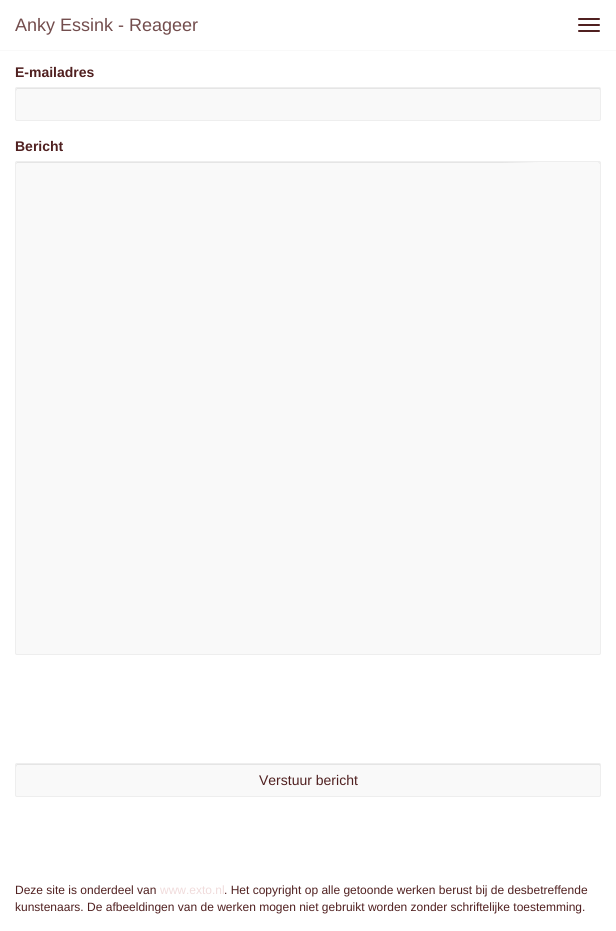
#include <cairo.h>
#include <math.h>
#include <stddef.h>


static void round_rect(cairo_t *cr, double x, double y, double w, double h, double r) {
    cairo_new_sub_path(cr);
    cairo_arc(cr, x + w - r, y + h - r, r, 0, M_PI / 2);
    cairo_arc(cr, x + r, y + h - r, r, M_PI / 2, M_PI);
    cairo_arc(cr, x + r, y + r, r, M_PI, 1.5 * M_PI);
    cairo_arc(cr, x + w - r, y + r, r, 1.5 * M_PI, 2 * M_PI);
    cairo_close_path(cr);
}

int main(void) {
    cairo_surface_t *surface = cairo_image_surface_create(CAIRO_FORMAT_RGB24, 616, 931);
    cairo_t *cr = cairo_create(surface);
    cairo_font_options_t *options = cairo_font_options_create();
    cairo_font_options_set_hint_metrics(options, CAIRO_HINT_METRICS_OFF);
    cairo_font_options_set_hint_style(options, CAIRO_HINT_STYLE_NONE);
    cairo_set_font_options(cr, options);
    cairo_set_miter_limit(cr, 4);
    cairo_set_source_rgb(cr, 1, 1, 1);
    cairo_paint(cr);
    cairo_set_source_rgb(cr, 0.973, 0.973, 0.973);
    cairo_rectangle(cr, 0, 50, 616, 1);
    cairo_fill(cr);
    cairo_select_font_face(cr, "Liberation Sans", CAIRO_FONT_SLANT_NORMAL, CAIRO_FONT_WEIGHT_NORMAL);
    cairo_set_font_size(cr, 18);
    cairo_set_source_rgb(cr, 0.451, 0.302, 0.302);
    cairo_move_to(cr, 15, 31);
    cairo_show_text(cr, "Anky Essink - Reageer");
    cairo_set_source_rgb(cr, 0.314, 0.125, 0.125);
    round_rect(cr, 578, 18, 22, 2, 1);
    cairo_fill(cr);
    round_rect(cr, 578, 24, 22, 2, 1);
    cairo_fill(cr);
    round_rect(cr, 578, 30, 22, 2, 1);
    cairo_fill(cr);
    cairo_select_font_face(cr, "Liberation Sans", CAIRO_FONT_SLANT_NORMAL, CAIRO_FONT_WEIGHT_BOLD);
    cairo_set_font_size(cr, 14);
    cairo_move_to(cr, 15, 77);
    cairo_show_text(cr, "E-mailadres");
    cairo_set_source_rgb(cr, 0.973, 0.973, 0.973);
    round_rect(cr, 15, 87, 586, 34, 2);
    cairo_fill(cr);
    cairo_set_source_rgb(cr, 0.898, 0.898, 0.898);
    cairo_new_path(cr);
    cairo_move_to(cr, 17, 89);
    cairo_line_to(cr, 599, 89);
    cairo_line_to(cr, 600, 90);
    cairo_line_to(cr, 600, 88);
    cairo_line_to(cr, 17, 88);
    cairo_curve_to(cr, 16, 88, 16, 90, 16, 91);
    cairo_close_path(cr);
    cairo_fill(cr);
    round_rect(cr, 15.5, 87.5, 585, 33, 1.5);
    cairo_set_source_rgb(cr, 0.933, 0.933, 0.933);
    cairo_set_line_width(cr, 1);
    cairo_stroke(cr);
    cairo_set_source_rgb(cr, 0.314, 0.125, 0.125);
    cairo_move_to(cr, 15, 151);
    cairo_show_text(cr, "Bericht");
    cairo_set_source_rgb(cr, 0.973, 0.973, 0.973);
    round_rect(cr, 15, 161, 586, 494, 2);
    cairo_fill(cr);
    cairo_set_source_rgb(cr, 0.898, 0.898, 0.898);
    cairo_set_fill_rule(cr, CAIRO_FILL_RULE_EVEN_ODD);
    cairo_new_path(cr);
    cairo_move_to(cr, 17, 163);
    cairo_line_to(cr, 16, 164);
    cairo_line_to(cr, 16, 163);
    cairo_line_to(cr, 17, 162);
    cairo_line_to(cr, 539, 162);
    cairo_line_to(cr, 502, 163);
    cairo_close_path(cr);
    cairo_move_to(cr, 598, 162);
    cairo_line_to(cr, 600, 164);
    cairo_curve_to(cr, 600, 163, 600, 162, 598, 162);
    cairo_close_path(cr);
    cairo_fill(cr);
    round_rect(cr, 15.5, 161.5, 585, 493, 1.5);
    cairo_set_source_rgb(cr, 0.933, 0.933, 0.933);
    cairo_stroke(cr);
    cairo_set_source_rgb(cr, 0.973, 0.973, 0.973);
    round_rect(cr, 15, 763, 586, 34, 2);
    cairo_fill(cr);
    cairo_set_source_rgb(cr, 0.898, 0.898, 0.898);
    cairo_set_fill_rule(cr, CAIRO_FILL_RULE_WINDING);
    cairo_new_path(cr);
    cairo_move_to(cr, 17, 765);
    cairo_line_to(cr, 599, 765);
    cairo_line_to(cr, 600, 766);
    cairo_line_to(cr, 600, 764);
    cairo_line_to(cr, 17, 764);
    cairo_curve_to(cr, 16, 764, 16, 766, 16, 767);
    cairo_close_path(cr);
    cairo_fill(cr);
    round_rect(cr, 15.5, 763.5, 585, 33, 1.5);
    cairo_set_source_rgb(cr, 0.933, 0.933, 0.933);
    cairo_stroke(cr);
    cairo_select_font_face(cr, "Liberation Sans", CAIRO_FONT_SLANT_NORMAL, CAIRO_FONT_WEIGHT_NORMAL);
    cairo_set_source_rgb(cr, 0.314, 0.125, 0.125);
    cairo_move_to(cr, 259, 785);
    cairo_show_text(cr, "Verstuur bericht");
    cairo_set_font_size(cr, 12);
    cairo_move_to(cr, 15, 894);
    cairo_show_text(cr, "Deze site is onderdeel van");
    cairo_set_source_rgb(cr, 0.941, 0.859, 0.859);
    cairo_move_to(cr, 160, 894);
    cairo_show_text(cr, "www.exto.nl");
    cairo_set_source_rgb(cr, 0.314, 0.125, 0.125);
    cairo_move_to(cr, 224, 894);
    cairo_show_text(cr, ". Het copyright op alle getoonde werken berust bij de desbetreffende");
    cairo_move_to(cr, 15, 911);
    cairo_show_text(cr, "kunstenaars. De afbeeldingen van de werken mogen niet gebruikt worden zonder schriftelijke toestemming.");
    cairo_surface_write_to_png(surface, "page.png");
    cairo_font_options_destroy(options);
    cairo_destroy(cr);
    cairo_surface_destroy(surface);
    return 0;
}
